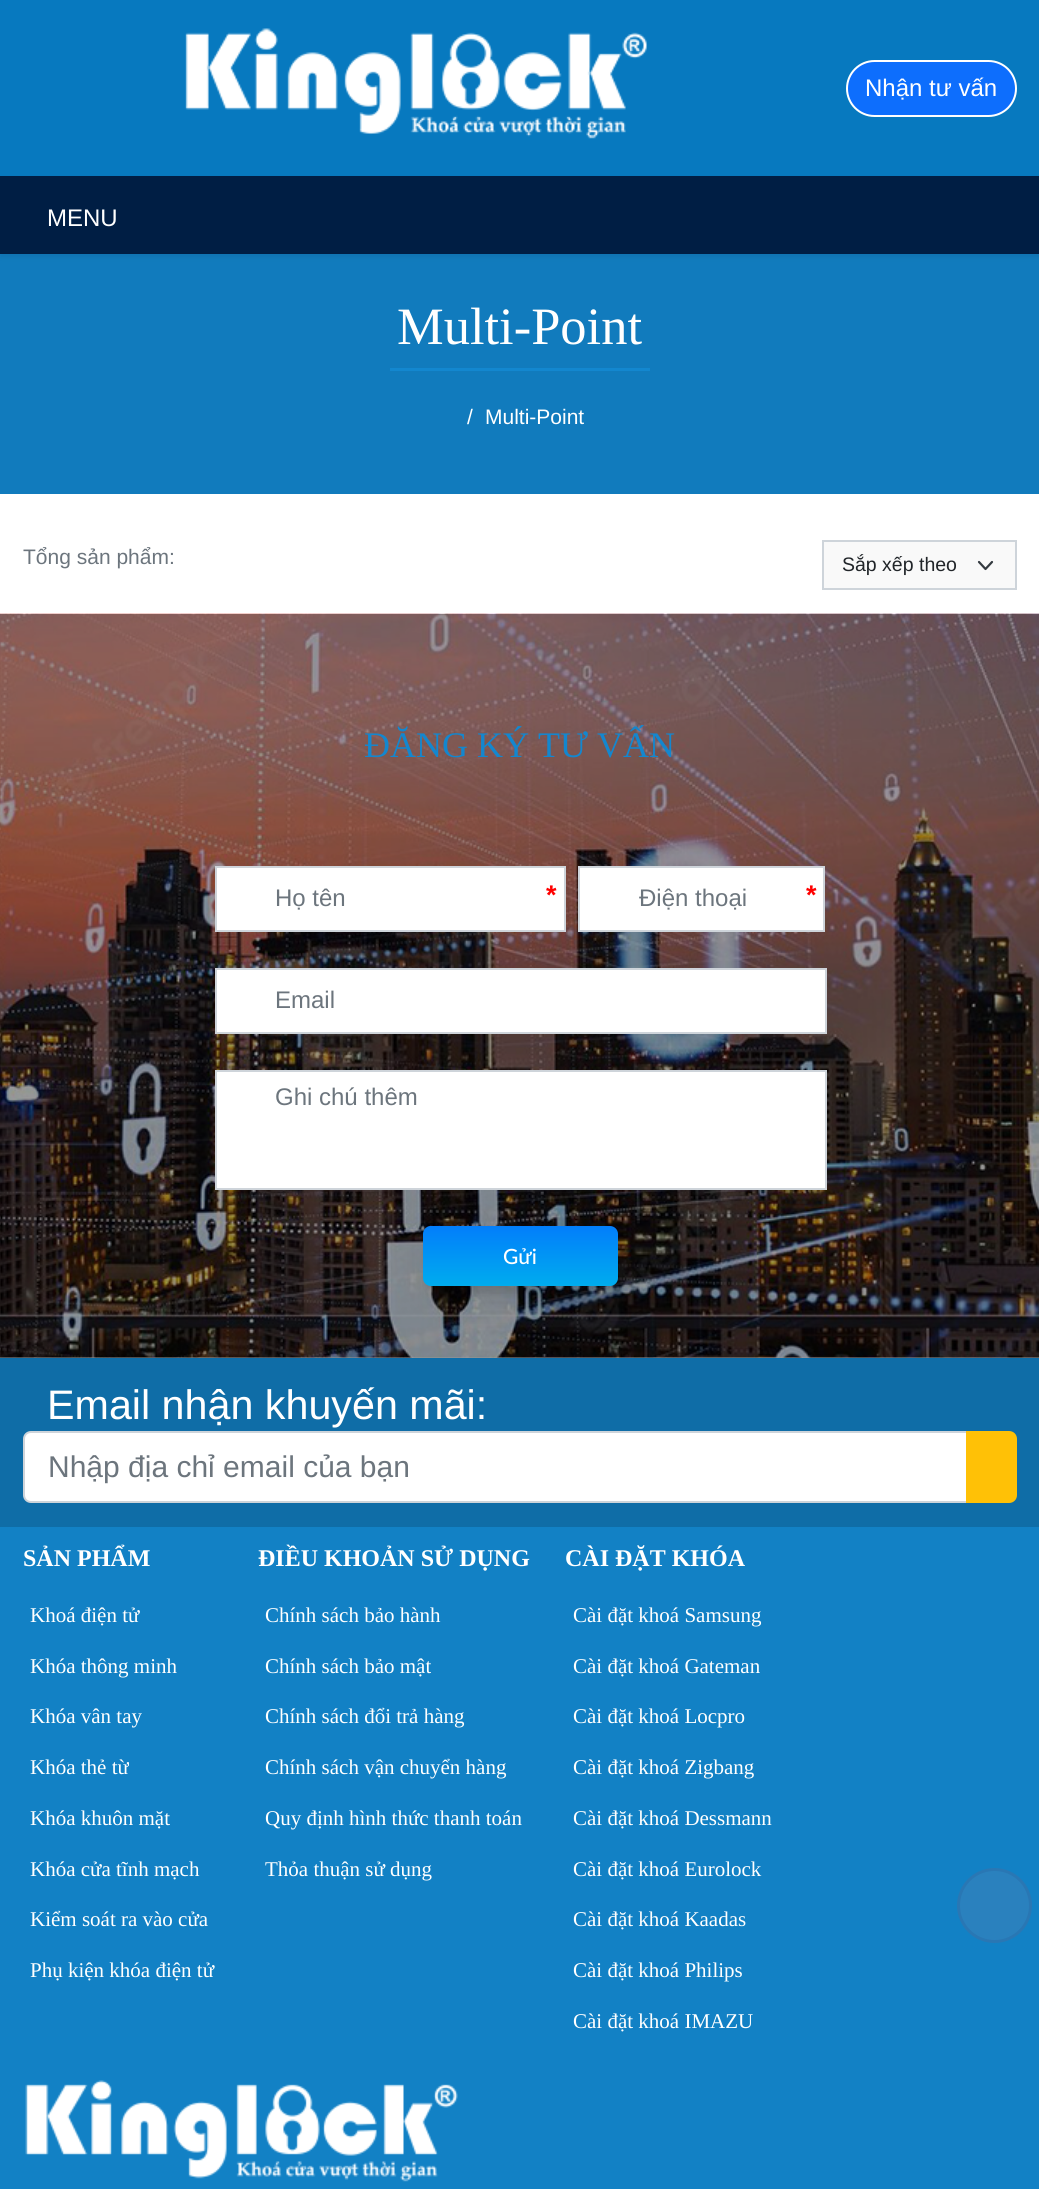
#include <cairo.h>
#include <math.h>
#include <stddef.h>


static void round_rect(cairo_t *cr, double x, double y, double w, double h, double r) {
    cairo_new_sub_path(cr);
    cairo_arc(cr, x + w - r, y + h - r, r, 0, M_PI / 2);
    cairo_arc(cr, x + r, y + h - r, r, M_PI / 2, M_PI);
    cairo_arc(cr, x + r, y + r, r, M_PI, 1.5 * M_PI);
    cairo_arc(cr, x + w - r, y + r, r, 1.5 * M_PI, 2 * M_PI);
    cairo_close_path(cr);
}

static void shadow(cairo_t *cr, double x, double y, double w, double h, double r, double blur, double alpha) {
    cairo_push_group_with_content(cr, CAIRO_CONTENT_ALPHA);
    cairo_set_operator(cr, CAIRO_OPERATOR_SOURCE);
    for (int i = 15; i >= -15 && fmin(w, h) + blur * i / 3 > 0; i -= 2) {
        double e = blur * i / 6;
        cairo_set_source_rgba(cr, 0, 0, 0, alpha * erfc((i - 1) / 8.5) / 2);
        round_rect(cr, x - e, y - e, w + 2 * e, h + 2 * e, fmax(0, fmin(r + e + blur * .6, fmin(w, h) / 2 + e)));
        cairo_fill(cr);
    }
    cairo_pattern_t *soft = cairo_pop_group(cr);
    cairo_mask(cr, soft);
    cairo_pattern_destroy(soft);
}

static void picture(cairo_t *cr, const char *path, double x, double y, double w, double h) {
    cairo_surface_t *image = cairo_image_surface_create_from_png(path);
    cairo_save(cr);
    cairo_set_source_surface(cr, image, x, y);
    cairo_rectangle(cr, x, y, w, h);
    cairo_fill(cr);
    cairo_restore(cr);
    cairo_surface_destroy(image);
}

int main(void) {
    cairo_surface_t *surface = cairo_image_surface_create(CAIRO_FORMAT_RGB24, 1039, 2189);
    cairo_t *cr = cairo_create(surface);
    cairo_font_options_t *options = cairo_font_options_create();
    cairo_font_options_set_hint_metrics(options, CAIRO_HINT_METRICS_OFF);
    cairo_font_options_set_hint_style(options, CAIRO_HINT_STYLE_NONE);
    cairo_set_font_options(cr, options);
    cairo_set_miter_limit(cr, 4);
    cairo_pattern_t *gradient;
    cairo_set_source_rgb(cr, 1, 1, 1);
    cairo_paint(cr);
    cairo_set_source_rgb(cr, 0.6, 0.6, 0.6);
    cairo_rectangle(cr, 0, 1357, 1039, 1);
    cairo_fill(cr);
    cairo_set_source_rgb(cr, 0.031, 0.475, 0.749);
    cairo_rectangle(cr, 0, 0, 1039, 176);
    cairo_fill(cr);
    picture(cr, "img1.png", 185, 28, 462, 111);
    cairo_set_source_rgb(cr, 0.051, 0.431, 0.992);
    round_rect(cr, 847, 61, 169, 55, 27.5);
    cairo_fill_preserve(cr);
    cairo_set_source_rgb(cr, 1, 1, 1);
    cairo_stroke(cr);
    cairo_select_font_face(cr, "Liberation Sans", CAIRO_FONT_SLANT_NORMAL, CAIRO_FONT_WEIGHT_NORMAL);
    cairo_set_font_size(cr, 24);
    cairo_move_to(cr, 865, 96);
    cairo_show_text(cr, "Nhận tư vấn");
    cairo_set_source_rgb(cr, 0.067, 0.482, 0.741);
    cairo_rectangle(cr, 0, 254, 1039, 240);
    cairo_fill(cr);
    cairo_set_source_rgb(cr, 0, 0, 0);
    shadow(cr, 0, 179, 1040, 78, 0, 3, 0.07);
    cairo_set_source_rgb(cr, 0, 0.118, 0.267);
    cairo_rectangle(cr, 0, 176, 1039, 78);
    cairo_fill(cr);
    cairo_set_source_rgb(cr, 1, 1, 1);
    cairo_move_to(cr, 47, 226);
    cairo_show_text(cr, "MENU");
    cairo_set_source_rgb(cr, 0.075, 0.529, 0.812);
    cairo_rectangle(cr, 390, 368, 260, 3);
    cairo_fill(cr);
    cairo_select_font_face(cr, "Liberation Serif", CAIRO_FONT_SLANT_NORMAL, CAIRO_FONT_WEIGHT_NORMAL);
    cairo_set_font_size(cr, 52.5);
    cairo_set_source_rgb(cr, 1, 1, 1);
    cairo_move_to(cr, 397, 344);
    cairo_show_text(cr, "Multi-Point");
    cairo_select_font_face(cr, "Liberation Sans", CAIRO_FONT_SLANT_NORMAL, CAIRO_FONT_WEIGHT_NORMAL);
    cairo_set_font_size(cr, 21);
    cairo_move_to(cr, 467, 424);
    cairo_show_text(cr, "/");
    cairo_move_to(cr, 485, 424);
    cairo_show_text(cr, "Multi-Point");
    cairo_set_source_rgb(cr, 0.424, 0.459, 0.49);
    cairo_move_to(cr, 23, 564);
    cairo_show_text(cr, "Tổng sản phẩm:");
    cairo_set_source_rgb(cr, 0.976, 0.976, 0.976);
    cairo_rectangle(cr, 824, 542, 191, 46);
    cairo_fill(cr);
    cairo_new_path(cr);
    cairo_move_to(cr, 979, 562);
    cairo_line_to(cr, 985.5, 569);
    cairo_line_to(cr, 992, 562);
    cairo_set_source_rgb(cr, 0.204, 0.227, 0.251);
    cairo_set_line_width(cr, 2.2);
    cairo_set_line_cap(cr, CAIRO_LINE_CAP_ROUND);
    cairo_set_line_join(cr, CAIRO_LINE_JOIN_ROUND);
    cairo_stroke(cr);
    cairo_rectangle(cr, 823, 541, 193, 48);
    cairo_set_source_rgb(cr, 0.808, 0.831, 0.855);
    cairo_set_line_width(cr, 2);
    cairo_set_line_cap(cr, CAIRO_LINE_CAP_BUTT);
    cairo_set_line_join(cr, CAIRO_LINE_JOIN_MITER);
    cairo_stroke(cr);
    cairo_set_font_size(cr, 19.5);
    cairo_set_source_rgb(cr, 0.129, 0.145, 0.161);
    cairo_move_to(cr, 842, 571);
    cairo_show_text(cr, "Sắp xếp theo");
    picture(cr, "img2.png", 0, 613, 1039, 745);
    cairo_select_font_face(cr, "Liberation Serif", CAIRO_FONT_SLANT_NORMAL, CAIRO_FONT_WEIGHT_NORMAL);
    cairo_set_font_size(cr, 36);
    cairo_set_source_rgb(cr, 0.075, 0.529, 0.812);
    cairo_move_to(cr, 364, 757);
    cairo_show_text(cr, "ĐĂNG KÝ TƯ VẤN");
    cairo_set_source_rgb(cr, 1, 1, 1);
    cairo_rectangle(cr, 216, 867, 349, 64);
    cairo_fill_preserve(cr);
    cairo_set_source_rgb(cr, 0.808, 0.831, 0.855);
    cairo_stroke(cr);
    cairo_select_font_face(cr, "Liberation Sans", CAIRO_FONT_SLANT_NORMAL, CAIRO_FONT_WEIGHT_NORMAL);
    cairo_set_font_size(cr, 24);
    cairo_set_source_rgb(cr, 0.424, 0.459, 0.49);
    cairo_move_to(cr, 275, 906);
    cairo_show_text(cr, "Họ tên");
    cairo_select_font_face(cr, "Liberation Sans", CAIRO_FONT_SLANT_NORMAL, CAIRO_FONT_WEIGHT_BOLD);
    cairo_set_font_size(cr, 27);
    cairo_set_source_rgb(cr, 1, 0, 0);
    cairo_move_to(cr, 546, 904);
    cairo_show_text(cr, "*");
    cairo_set_source_rgb(cr, 1, 1, 1);
    cairo_rectangle(cr, 579, 867, 245, 64);
    cairo_fill_preserve(cr);
    cairo_set_source_rgb(cr, 0.808, 0.831, 0.855);
    cairo_stroke(cr);
    cairo_select_font_face(cr, "Liberation Sans", CAIRO_FONT_SLANT_NORMAL, CAIRO_FONT_WEIGHT_NORMAL);
    cairo_set_font_size(cr, 24);
    cairo_set_source_rgb(cr, 0.424, 0.459, 0.49);
    cairo_move_to(cr, 639, 906);
    cairo_show_text(cr, "Điện thoại");
    cairo_select_font_face(cr, "Liberation Sans", CAIRO_FONT_SLANT_NORMAL, CAIRO_FONT_WEIGHT_BOLD);
    cairo_set_font_size(cr, 27);
    cairo_set_source_rgb(cr, 1, 0, 0);
    cairo_move_to(cr, 806, 904);
    cairo_show_text(cr, "*");
    cairo_set_source_rgb(cr, 1, 1, 1);
    cairo_rectangle(cr, 216, 969, 610, 64);
    cairo_fill_preserve(cr);
    cairo_set_source_rgb(cr, 0.808, 0.831, 0.855);
    cairo_stroke(cr);
    cairo_select_font_face(cr, "Liberation Sans", CAIRO_FONT_SLANT_NORMAL, CAIRO_FONT_WEIGHT_NORMAL);
    cairo_set_font_size(cr, 24);
    cairo_set_source_rgb(cr, 0.424, 0.459, 0.49);
    cairo_move_to(cr, 275, 1008);
    cairo_show_text(cr, "Email");
    cairo_set_source_rgb(cr, 1, 1, 1);
    cairo_rectangle(cr, 216, 1071, 610, 118);
    cairo_fill_preserve(cr);
    cairo_set_source_rgb(cr, 0.808, 0.831, 0.855);
    cairo_stroke(cr);
    cairo_set_source_rgb(cr, 0.424, 0.459, 0.49);
    cairo_move_to(cr, 275, 1105);
    cairo_show_text(cr, "Ghi chú thêm");
    cairo_set_source_rgb(cr, 0, 0, 0);
    shadow(cr, 429, 1232, 195, 60, 8, 4, 0.1);
    shadow(cr, 434, 1236, 195, 60, 8, 15, 0.1);
    gradient = cairo_pattern_create_linear(521, 1286, 521, 1226);
    cairo_pattern_add_color_stop_rgba(gradient, 0, 0, 0.675, 0.933, 1);
    cairo_pattern_add_color_stop_rgba(gradient, 1, 0.008, 0.494, 0.984, 1);
    cairo_set_source(cr, gradient);
    cairo_pattern_destroy(gradient);
    round_rect(cr, 423, 1226, 195, 60, 8);
    cairo_fill(cr);
    cairo_select_font_face(cr, "Lato Medium", CAIRO_FONT_SLANT_NORMAL, CAIRO_FONT_WEIGHT_NORMAL);
    cairo_set_font_size(cr, 21);
    cairo_set_source_rgb(cr, 1, 1, 1);
    cairo_move_to(cr, 503, 1264);
    cairo_show_text(cr, "Gửi");
    cairo_set_source_rgb(cr, 0.059, 0.427, 0.655);
    cairo_rectangle(cr, 0, 1358, 1039, 169);
    cairo_fill(cr);
    cairo_select_font_face(cr, "Liberation Sans", CAIRO_FONT_SLANT_NORMAL, CAIRO_FONT_WEIGHT_NORMAL);
    cairo_set_font_size(cr, 41.25);
    cairo_set_source_rgb(cr, 1, 1, 1);
    cairo_move_to(cr, 47, 1419);
    cairo_show_text(cr, "Email nhận khuyến mãi:");
    cairo_new_path(cr);
    cairo_move_to(cr, 31, 1432);
    cairo_line_to(cr, 967, 1432);
    cairo_line_to(cr, 967, 1502);
    cairo_line_to(cr, 31, 1502);
    cairo_curve_to(cr, 27, 1502, 24, 1499, 24, 1495);
    cairo_line_to(cr, 24, 1439);
    cairo_curve_to(cr, 24, 1435, 27, 1432, 31, 1432);
    cairo_close_path(cr);
    cairo_fill_preserve(cr);
    cairo_set_source_rgb(cr, 0.808, 0.831, 0.855);
    cairo_stroke(cr);
    cairo_set_font_size(cr, 30);
    cairo_set_source_rgb(cr, 0.424, 0.459, 0.49);
    cairo_move_to(cr, 48, 1477);
    cairo_show_text(cr, "Nhập địa chỉ email của bạn");
    cairo_set_source_rgb(cr, 1, 0.757, 0.027);
    cairo_new_path(cr);
    cairo_move_to(cr, 967, 1432);
    cairo_line_to(cr, 1009, 1432);
    cairo_curve_to(cr, 1013, 1432, 1016, 1435, 1016, 1439);
    cairo_line_to(cr, 1016, 1495);
    cairo_curve_to(cr, 1016, 1499, 1013, 1502, 1009, 1502);
    cairo_line_to(cr, 967, 1502);
    cairo_close_path(cr);
    cairo_fill_preserve(cr);
    cairo_stroke(cr);
    cairo_set_source_rgb(cr, 0.071, 0.506, 0.773);
    cairo_rectangle(cr, 0, 1527, 1039, 662);
    cairo_fill(cr);
    cairo_select_font_face(cr, "Liberation Serif", CAIRO_FONT_SLANT_NORMAL, CAIRO_FONT_WEIGHT_BOLD);
    cairo_set_font_size(cr, 24);
    cairo_set_source_rgb(cr, 1, 1, 1);
    cairo_move_to(cr, 23, 1566);
    cairo_show_text(cr, "SẢN PHẨM");
    cairo_select_font_face(cr, "Liberation Serif", CAIRO_FONT_SLANT_NORMAL, CAIRO_FONT_WEIGHT_NORMAL);
    cairo_set_font_size(cr, 21);
    cairo_move_to(cr, 30, 1622);
    cairo_show_text(cr, "Khoá điện tử");
    cairo_move_to(cr, 30, 1673);
    cairo_show_text(cr, "Khóa thông minh");
    cairo_move_to(cr, 30, 1723);
    cairo_show_text(cr, "Khóa vân tay");
    cairo_move_to(cr, 30, 1774);
    cairo_show_text(cr, "Khóa thẻ từ");
    cairo_move_to(cr, 30, 1825);
    cairo_show_text(cr, "Khóa khuôn mặt");
    cairo_move_to(cr, 30, 1876);
    cairo_show_text(cr, "Khóa cửa tĩnh mạch");
    cairo_move_to(cr, 30, 1926);
    cairo_show_text(cr, "Kiểm soát ra vào cửa");
    cairo_move_to(cr, 30, 1977);
    cairo_show_text(cr, "Phụ kiện khóa điện tử");
    cairo_select_font_face(cr, "Liberation Serif", CAIRO_FONT_SLANT_NORMAL, CAIRO_FONT_WEIGHT_BOLD);
    cairo_set_font_size(cr, 24);
    cairo_move_to(cr, 258, 1566);
    cairo_show_text(cr, "ĐIỀU KHOẢN SỬ DỤNG");
    cairo_select_font_face(cr, "Liberation Serif", CAIRO_FONT_SLANT_NORMAL, CAIRO_FONT_WEIGHT_NORMAL);
    cairo_set_font_size(cr, 21);
    cairo_move_to(cr, 265, 1622);
    cairo_show_text(cr, "Chính sách bảo hành");
    cairo_move_to(cr, 265, 1673);
    cairo_show_text(cr, "Chính sách bảo mật");
    cairo_move_to(cr, 265, 1723);
    cairo_show_text(cr, "Chính sách đổi trả hàng");
    cairo_move_to(cr, 265, 1774);
    cairo_show_text(cr, "Chính sách vận chuyển hàng");
    cairo_move_to(cr, 265, 1825);
    cairo_show_text(cr, "Quy định hình thức thanh toán");
    cairo_move_to(cr, 265, 1876);
    cairo_show_text(cr, "Thỏa thuận sử dụng");
    cairo_select_font_face(cr, "Liberation Serif", CAIRO_FONT_SLANT_NORMAL, CAIRO_FONT_WEIGHT_BOLD);
    cairo_set_font_size(cr, 24);
    cairo_move_to(cr, 565, 1566);
    cairo_show_text(cr, "CÀI ĐẶT KHÓA");
    cairo_select_font_face(cr, "Liberation Serif", CAIRO_FONT_SLANT_NORMAL, CAIRO_FONT_WEIGHT_NORMAL);
    cairo_set_font_size(cr, 21);
    cairo_move_to(cr, 573, 1622);
    cairo_show_text(cr, "Cài đặt khoá Samsung");
    cairo_move_to(cr, 573, 1673);
    cairo_show_text(cr, "Cài đặt khoá Gateman");
    cairo_move_to(cr, 573, 1723);
    cairo_show_text(cr, "Cài đặt khoá Locpro");
    cairo_move_to(cr, 573, 1774);
    cairo_show_text(cr, "Cài đặt khoá Zigbang");
    cairo_move_to(cr, 573, 1825);
    cairo_show_text(cr, "Cài đặt khoá Dessmann");
    cairo_move_to(cr, 573, 1876);
    cairo_show_text(cr, "Cài đặt khoá Eurolock");
    cairo_move_to(cr, 573, 1926);
    cairo_show_text(cr, "Cài đặt khoá Kaadas");
    cairo_move_to(cr, 573, 1977);
    cairo_show_text(cr, "Cài đặt khoá Philips");
    cairo_move_to(cr, 573, 2028);
    cairo_show_text(cr, "Cài đặt khoá IMAZU");
    picture(cr, "img3.png", 25, 2080, 433, 102);
    cairo_set_source_rgb(cr, 0.165, 0.506, 0.745);
    cairo_arc(cr, 994.5, 1905.5, 36, 0, 2 * M_PI);
    cairo_fill_preserve(cr);
    cairo_set_source_rgb(cr, 0.161, 0.467, 0.706);
    cairo_set_line_width(cr, 3);
    cairo_stroke(cr);
    cairo_surface_write_to_png(surface, "page.png");
    cairo_font_options_destroy(options);
    cairo_destroy(cr);
    cairo_surface_destroy(surface);
    return 0;
}
